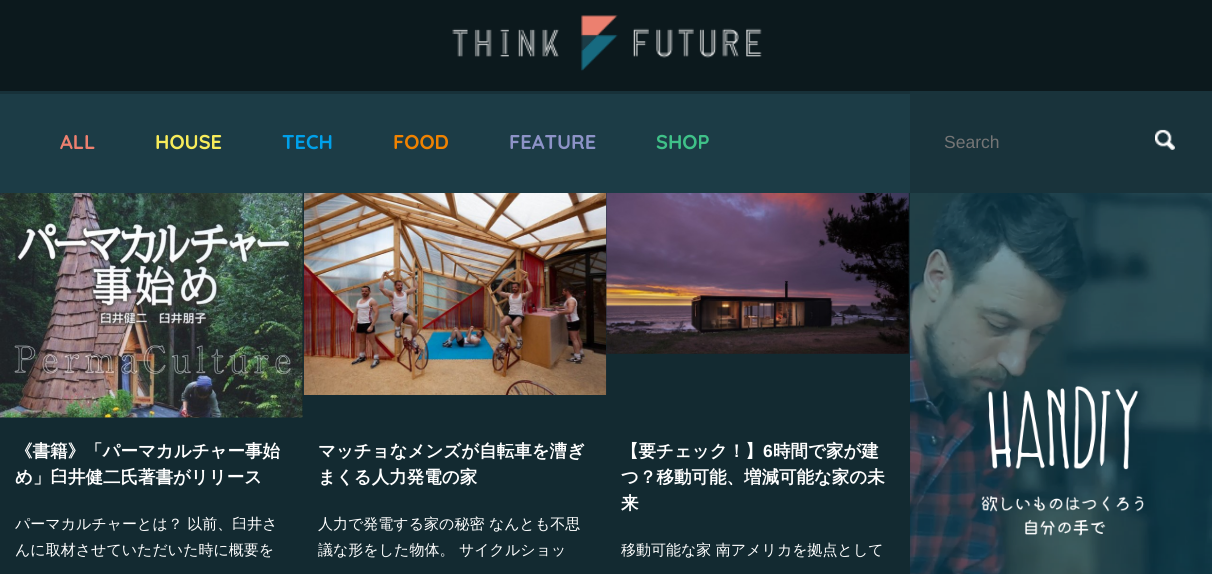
#include <cairo.h>
#include <math.h>
#include <stddef.h>


static void picture(cairo_t *cr, const char *path, double x, double y, double w, double h) {
    cairo_surface_t *image = cairo_image_surface_create_from_png(path);
    cairo_save(cr);
    cairo_set_source_surface(cr, image, x, y);
    cairo_rectangle(cr, x, y, w, h);
    cairo_fill(cr);
    cairo_restore(cr);
    cairo_surface_destroy(image);
}

int main(void) {
    cairo_surface_t *surface = cairo_image_surface_create(CAIRO_FORMAT_RGB24, 1212, 574);
    cairo_t *cr = cairo_create(surface);
    cairo_font_options_t *options = cairo_font_options_create();
    cairo_font_options_set_hint_metrics(options, CAIRO_HINT_METRICS_OFF);
    cairo_font_options_set_hint_style(options, CAIRO_HINT_STYLE_NONE);
    cairo_set_font_options(cr, options);
    cairo_set_miter_limit(cr, 4);
    cairo_set_source_rgb(cr, 0.047, 0.098, 0.114);
    cairo_paint(cr);
    picture(cr, "img1.png", 452, 15, 310, 56);
    cairo_set_source_rgb(cr, 0.11, 0.235, 0.275);
    cairo_rectangle(cr, 0, 94, 910, 99);
    cairo_fill(cr);
    cairo_set_source_rgb(cr, 0.09, 0.192, 0.224);
    cairo_rectangle(cr, 0, 91, 910, 3);
    cairo_fill(cr);
    cairo_select_font_face(cr, "Quicksand", CAIRO_FONT_SLANT_NORMAL, CAIRO_FONT_WEIGHT_BOLD);
    cairo_set_font_size(cr, 20);
    cairo_set_source_rgb(cr, 0.925, 0.502, 0.435);
    cairo_move_to(cr, 60, 149);
    cairo_show_text(cr, "ALL");
    cairo_set_source_rgb(cr, 0.965, 0.925, 0.353);
    cairo_move_to(cr, 155, 149);
    cairo_show_text(cr, "HOUSE");
    cairo_set_source_rgb(cr, 0, 0.627, 0.914);
    cairo_move_to(cr, 282, 149);
    cairo_show_text(cr, "TECH");
    cairo_set_source_rgb(cr, 0.941, 0.51, 0);
    cairo_move_to(cr, 393, 149);
    cairo_show_text(cr, "FOOD");
    cairo_set_source_rgb(cr, 0.553, 0.576, 0.784);
    cairo_move_to(cr, 509, 149);
    cairo_show_text(cr, "FEATURE");
    cairo_set_source_rgb(cr, 0.247, 0.757, 0.533);
    cairo_move_to(cr, 656, 149);
    cairo_show_text(cr, "SHOP");
    cairo_set_source_rgb(cr, 0.098, 0.2, 0.231);
    cairo_rectangle(cr, 910, 91, 302, 102);
    cairo_fill(cr);
    cairo_select_font_face(cr, "Liberation Sans", CAIRO_FONT_SLANT_NORMAL, CAIRO_FONT_WEIGHT_NORMAL);
    cairo_set_font_size(cr, 17.5);
    cairo_set_source_rgb(cr, 0.459, 0.459, 0.459);
    cairo_move_to(cr, 944, 148);
    cairo_show_text(cr, "Search");
    picture(cr, "img2.png", 1155, 129, 20, 21);
    cairo_set_source_rgb(cr, 0.078, 0.165, 0.192);
    cairo_rectangle(cr, 0, 193, 910, 381);
    cairo_fill(cr);
    picture(cr, "img3.png", 0, 193, 303, 225);
    cairo_select_font_face(cr, "WenQuanYi Zen Hei", CAIRO_FONT_SLANT_NORMAL, CAIRO_FONT_WEIGHT_BOLD);
    cairo_set_source_rgb(cr, 1, 1, 1);
    cairo_move_to(cr, 15, 457);
    cairo_show_text(cr, "《書籍》「パーマカルチャー事始");
    cairo_move_to(cr, 15, 483);
    cairo_show_text(cr, "め」臼井健二氏著書がリリース");
    cairo_select_font_face(cr, "WenQuanYi Zen Hei Medium", CAIRO_FONT_SLANT_NORMAL, CAIRO_FONT_WEIGHT_NORMAL);
    cairo_set_font_size(cr, 15);
    cairo_move_to(cr, 15, 529);
    cairo_show_text(cr, "パーマカルチャーとは？ 以前、臼井さ");
    cairo_move_to(cr, 15, 555);
    cairo_show_text(cr, "んに取材させていただいた時に概要を");
    picture(cr, "img4.png", 303, 193, 304, 202);
    cairo_select_font_face(cr, "WenQuanYi Zen Hei", CAIRO_FONT_SLANT_NORMAL, CAIRO_FONT_WEIGHT_BOLD);
    cairo_set_font_size(cr, 17.5);
    cairo_move_to(cr, 318, 457);
    cairo_show_text(cr, "マッチョなメンズが自転車を漕ぎ");
    cairo_move_to(cr, 318, 483);
    cairo_show_text(cr, "まくる人力発電の家");
    cairo_select_font_face(cr, "WenQuanYi Zen Hei Medium", CAIRO_FONT_SLANT_NORMAL, CAIRO_FONT_WEIGHT_NORMAL);
    cairo_set_font_size(cr, 15);
    cairo_move_to(cr, 318, 529);
    cairo_show_text(cr, "人力で発電する家の秘密 なんとも不思");
    cairo_move_to(cr, 318, 555);
    cairo_show_text(cr, "議な形をした物体。 サイクルショッ");
    picture(cr, "img5.png", 606, 193, 303, 161);
    cairo_select_font_face(cr, "WenQuanYi Zen Hei", CAIRO_FONT_SLANT_NORMAL, CAIRO_FONT_WEIGHT_BOLD);
    cairo_set_font_size(cr, 17.5);
    cairo_move_to(cr, 621, 457);
    cairo_show_text(cr, "【要チェック！】");
    cairo_select_font_face(cr, "Liberation Sans", CAIRO_FONT_SLANT_NORMAL, CAIRO_FONT_WEIGHT_BOLD);
    cairo_move_to(cr, 763, 457);
    cairo_show_text(cr, "6");
    cairo_select_font_face(cr, "WenQuanYi Zen Hei", CAIRO_FONT_SLANT_NORMAL, CAIRO_FONT_WEIGHT_BOLD);
    cairo_move_to(cr, 773, 457);
    cairo_show_text(cr, "時間で家が建");
    cairo_move_to(cr, 621, 483);
    cairo_show_text(cr, "つ？移動可能、増減可能な家の未");
    cairo_move_to(cr, 621, 509);
    cairo_show_text(cr, "来");
    cairo_select_font_face(cr, "WenQuanYi Zen Hei Medium", CAIRO_FONT_SLANT_NORMAL, CAIRO_FONT_WEIGHT_NORMAL);
    cairo_set_font_size(cr, 15);
    cairo_move_to(cr, 621, 555);
    cairo_show_text(cr, "移動可能な家 南アメリカを拠点として");
    picture(cr, "img6.png", 910, 193, 302, 381);
    picture(cr, "img7.png", 981, 386, 163, 150);
    cairo_surface_write_to_png(surface, "page.png");
    cairo_font_options_destroy(options);
    cairo_destroy(cr);
    cairo_surface_destroy(surface);
    return 0;
}
